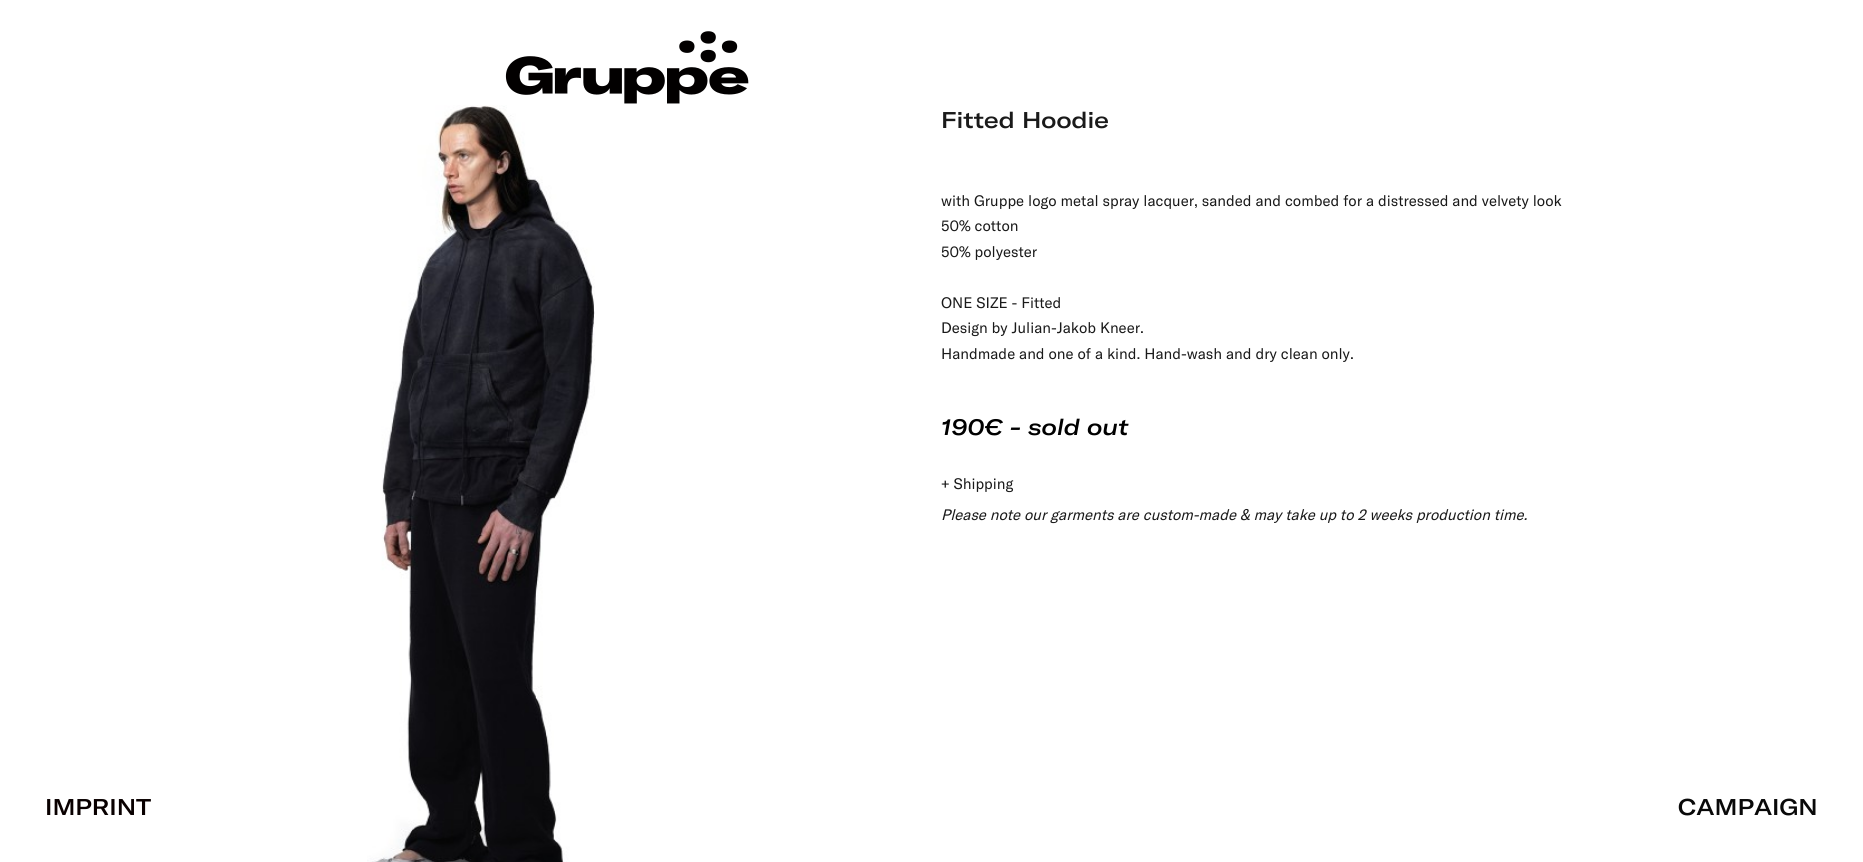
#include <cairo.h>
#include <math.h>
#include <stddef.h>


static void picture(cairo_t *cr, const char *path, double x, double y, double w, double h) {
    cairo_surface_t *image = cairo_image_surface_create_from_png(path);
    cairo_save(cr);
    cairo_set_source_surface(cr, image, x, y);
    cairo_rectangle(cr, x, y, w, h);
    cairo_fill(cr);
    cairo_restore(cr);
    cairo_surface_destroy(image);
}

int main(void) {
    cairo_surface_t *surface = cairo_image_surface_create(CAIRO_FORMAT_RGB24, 1863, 862);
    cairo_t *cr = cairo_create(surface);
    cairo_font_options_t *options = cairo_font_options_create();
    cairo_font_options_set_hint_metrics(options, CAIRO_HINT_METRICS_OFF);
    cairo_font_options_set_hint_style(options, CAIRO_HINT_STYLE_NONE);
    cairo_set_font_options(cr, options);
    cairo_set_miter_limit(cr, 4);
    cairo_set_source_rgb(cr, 1, 1, 1);
    cairo_paint(cr);
    picture(cr, "img1.png", 505, 31, 244, 73);
    picture(cr, "img2.png", 367, 105, 228, 757);
    cairo_select_font_face(cr, "GT America Medium", CAIRO_FONT_SLANT_NORMAL, CAIRO_FONT_WEIGHT_NORMAL);
    cairo_set_font_size(cr, 22.5);
    cairo_set_source_rgb(cr, 0.102, 0.102, 0.102);
    cairo_move_to(cr, 941, 128);
    cairo_show_text(cr, "Fitted Hoodie");
    cairo_select_font_face(cr, "GT America", CAIRO_FONT_SLANT_NORMAL, CAIRO_FONT_WEIGHT_NORMAL);
    cairo_set_font_size(cr, 15);
    cairo_move_to(cr, 941, 206);
    cairo_show_text(cr, "with Gruppe logo metal spray lacquer, sanded and combed for a distressed and velvety look");
    cairo_move_to(cr, 941, 231);
    cairo_show_text(cr, "50% cotton");
    cairo_move_to(cr, 941, 257);
    cairo_show_text(cr, "50% polyester");
    cairo_move_to(cr, 941, 308);
    cairo_show_text(cr, "ONE SIZE - Fitted");
    cairo_move_to(cr, 941, 333);
    cairo_show_text(cr, "Design by Julian-Jakob Kneer.");
    cairo_move_to(cr, 941, 359);
    cairo_show_text(cr, "Handmade and one of a kind. Hand-wash and dry clean only.");
    cairo_select_font_face(cr, "GT America Medium", CAIRO_FONT_SLANT_ITALIC, CAIRO_FONT_WEIGHT_NORMAL);
    cairo_set_font_size(cr, 22.5);
    cairo_set_source_rgb(cr, 0, 0, 0);
    cairo_move_to(cr, 941, 435);
    cairo_show_text(cr, "190€ - sold out");
    cairo_select_font_face(cr, "GT America", CAIRO_FONT_SLANT_NORMAL, CAIRO_FONT_WEIGHT_NORMAL);
    cairo_set_font_size(cr, 15);
    cairo_set_source_rgb(cr, 0.102, 0.102, 0.102);
    cairo_move_to(cr, 941, 489);
    cairo_show_text(cr, "+ Shipping");
    cairo_select_font_face(cr, "GT America", CAIRO_FONT_SLANT_ITALIC, CAIRO_FONT_WEIGHT_NORMAL);
    cairo_move_to(cr, 941, 520);
    cairo_show_text(cr, "Please note our garments are custom-made & may take up to 2 weeks production time.");
    cairo_select_font_face(cr, "GT America Medium", CAIRO_FONT_SLANT_NORMAL, CAIRO_FONT_WEIGHT_NORMAL);
    cairo_set_font_size(cr, 22.5);
    cairo_set_source_rgb(cr, 0.039, 0, 0);
    cairo_move_to(cr, 45, 815);
    cairo_show_text(cr, "IMPRINT");
    cairo_set_source_rgb(cr, 0.039, 0.039, 0.039);
    cairo_move_to(cr, 1678, 815);
    cairo_show_text(cr, "CAMPAIGN");
    cairo_surface_write_to_png(surface, "page.png");
    cairo_font_options_destroy(options);
    cairo_destroy(cr);
    cairo_surface_destroy(surface);
    return 0;
}
